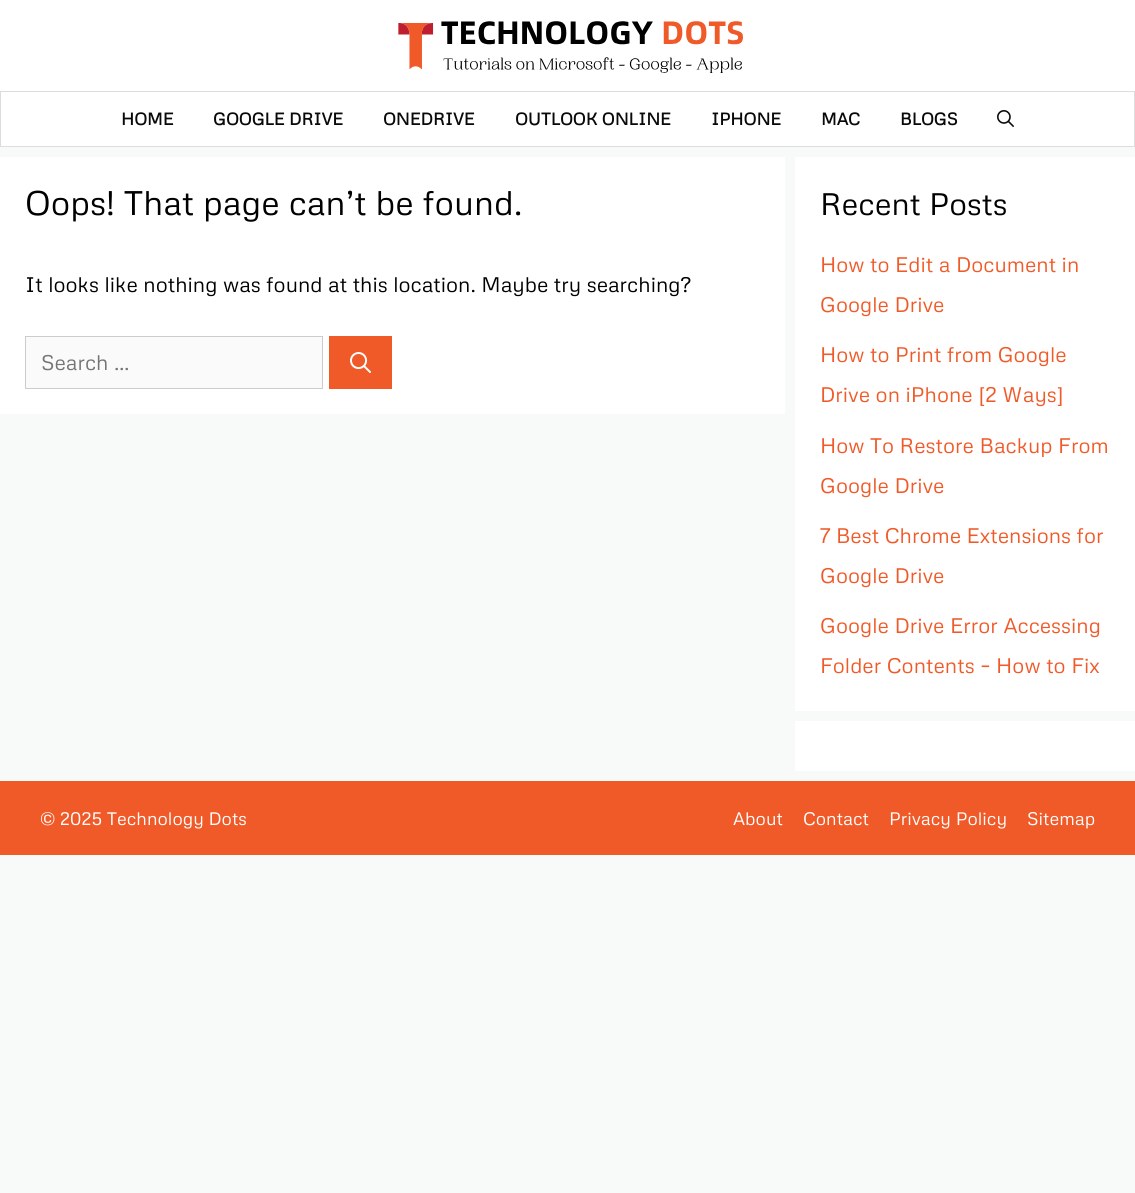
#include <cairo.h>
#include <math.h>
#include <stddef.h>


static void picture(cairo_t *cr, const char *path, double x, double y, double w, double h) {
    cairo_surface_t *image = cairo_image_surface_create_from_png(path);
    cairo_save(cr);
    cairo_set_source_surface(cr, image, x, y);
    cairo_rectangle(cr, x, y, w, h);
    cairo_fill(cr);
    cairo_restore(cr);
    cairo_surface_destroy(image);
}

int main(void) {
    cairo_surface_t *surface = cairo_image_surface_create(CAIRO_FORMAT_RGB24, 1135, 1193);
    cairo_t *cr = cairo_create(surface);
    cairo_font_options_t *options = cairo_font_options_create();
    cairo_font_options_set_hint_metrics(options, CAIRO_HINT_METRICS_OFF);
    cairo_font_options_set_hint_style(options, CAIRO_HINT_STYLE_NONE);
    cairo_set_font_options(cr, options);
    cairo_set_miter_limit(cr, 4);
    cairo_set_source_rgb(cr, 0.969, 0.973, 0.976);
    cairo_paint(cr);
    cairo_set_source_rgb(cr, 1, 1, 1);
    cairo_rectangle(cr, 0, 0, 1135, 91);
    cairo_fill(cr);
    picture(cr, "img1.png", 398, 21, 345, 52);
    cairo_rectangle(cr, 0.5, 91.5, 1134, 55);
    cairo_fill_preserve(cr);
    cairo_set_source_rgb(cr, 0.867, 0.867, 0.867);
    cairo_set_line_width(cr, 1);
    cairo_stroke(cr);
    cairo_select_font_face(cr, "Metrophobic", CAIRO_FONT_SLANT_NORMAL, CAIRO_FONT_WEIGHT_BOLD);
    cairo_set_font_size(cr, 17);
    cairo_set_source_rgb(cr, 0.039, 0.039, 0.039);
    cairo_move_to(cr, 121, 125);
    cairo_show_text(cr, "HOME");
    cairo_move_to(cr, 213, 125);
    cairo_show_text(cr, "GOOGLE DRIVE");
    cairo_move_to(cr, 383, 125);
    cairo_show_text(cr, "ONEDRIVE");
    cairo_move_to(cr, 515, 125);
    cairo_show_text(cr, "OUTLOOK ONLINE");
    cairo_move_to(cr, 711, 125);
    cairo_show_text(cr, "IPHONE");
    cairo_move_to(cr, 821, 125);
    cairo_show_text(cr, "MAC");
    cairo_move_to(cr, 900, 125);
    cairo_show_text(cr, "BLOGS");
    picture(cr, "img2.png", 997, 110, 17, 17);
    cairo_set_source_rgb(cr, 1, 1, 1);
    cairo_rectangle(cr, 0, 157, 785, 257);
    cairo_fill(cr);
    cairo_select_font_face(cr, "Metrophobic", CAIRO_FONT_SLANT_NORMAL, CAIRO_FONT_WEIGHT_NORMAL);
    cairo_set_font_size(cr, 34);
    cairo_set_source_rgb(cr, 0, 0, 0);
    cairo_move_to(cr, 25, 215);
    cairo_show_text(cr, "Oops! That page can’t be found.");
    cairo_set_font_size(cr, 21);
    cairo_move_to(cr, 25, 292);
    cairo_show_text(cr, "It looks like nothing was found at this location. Maybe try searching?");
    cairo_set_source_rgb(cr, 0.98, 0.98, 0.98);
    cairo_rectangle(cr, 25.5, 336.5, 297, 52);
    cairo_fill_preserve(cr);
    cairo_set_source_rgb(cr, 0.8, 0.8, 0.8);
    cairo_stroke(cr);
    cairo_set_source_rgb(cr, 0.459, 0.459, 0.459);
    cairo_move_to(cr, 41, 370);
    cairo_show_text(cr, "Search …");
    cairo_set_source_rgb(cr, 0.941, 0.353, 0.157);
    cairo_rectangle(cr, 329, 336, 63, 53);
    cairo_fill(cr);
    picture(cr, "img3.png", 350, 352, 21, 21);
    cairo_set_source_rgb(cr, 1, 1, 1);
    cairo_rectangle(cr, 795, 157, 340, 554);
    cairo_fill(cr);
    cairo_set_font_size(cr, 31);
    cairo_set_source_rgb(cr, 0, 0, 0);
    cairo_move_to(cr, 820, 215);
    cairo_show_text(cr, "Recent Posts");
    cairo_set_font_size(cr, 21);
    cairo_set_source_rgb(cr, 0.941, 0.353, 0.157);
    cairo_move_to(cr, 820, 272);
    cairo_show_text(cr, "How to Edit a Document in");
    cairo_move_to(cr, 820, 312);
    cairo_show_text(cr, "Google Drive");
    cairo_move_to(cr, 820, 362);
    cairo_show_text(cr, "How to Print from Google");
    cairo_move_to(cr, 820, 402);
    cairo_show_text(cr, "Drive on iPhone [2 Ways]");
    cairo_move_to(cr, 820, 453);
    cairo_show_text(cr, "How To Restore Backup From");
    cairo_move_to(cr, 820, 493);
    cairo_show_text(cr, "Google Drive");
    cairo_move_to(cr, 820, 543);
    cairo_show_text(cr, "7 Best Chrome Extensions for");
    cairo_move_to(cr, 820, 583);
    cairo_show_text(cr, "Google Drive");
    cairo_move_to(cr, 820, 633);
    cairo_show_text(cr, "Google Drive Error Accessing");
    cairo_move_to(cr, 820, 673);
    cairo_show_text(cr, "Folder Contents – How to Fix");
    cairo_set_source_rgb(cr, 1, 1, 1);
    cairo_rectangle(cr, 795, 721, 340, 50);
    cairo_fill(cr);
    cairo_set_source_rgb(cr, 0.941, 0.353, 0.157);
    cairo_rectangle(cr, 0, 781, 1135, 74);
    cairo_fill(cr);
    cairo_set_font_size(cr, 18);
    cairo_set_source_rgb(cr, 1, 1, 1);
    cairo_move_to(cr, 40, 825);
    cairo_show_text(cr, "© 2025 Technology Dots");
    cairo_move_to(cr, 733, 825);
    cairo_show_text(cr, "About");
    cairo_move_to(cr, 803, 825);
    cairo_show_text(cr, "Contact");
    cairo_move_to(cr, 889, 825);
    cairo_show_text(cr, "Privacy Policy");
    cairo_move_to(cr, 1027, 825);
    cairo_show_text(cr, "Sitemap");
    cairo_surface_write_to_png(surface, "page.png");
    cairo_font_options_destroy(options);
    cairo_destroy(cr);
    cairo_surface_destroy(surface);
    return 0;
}
